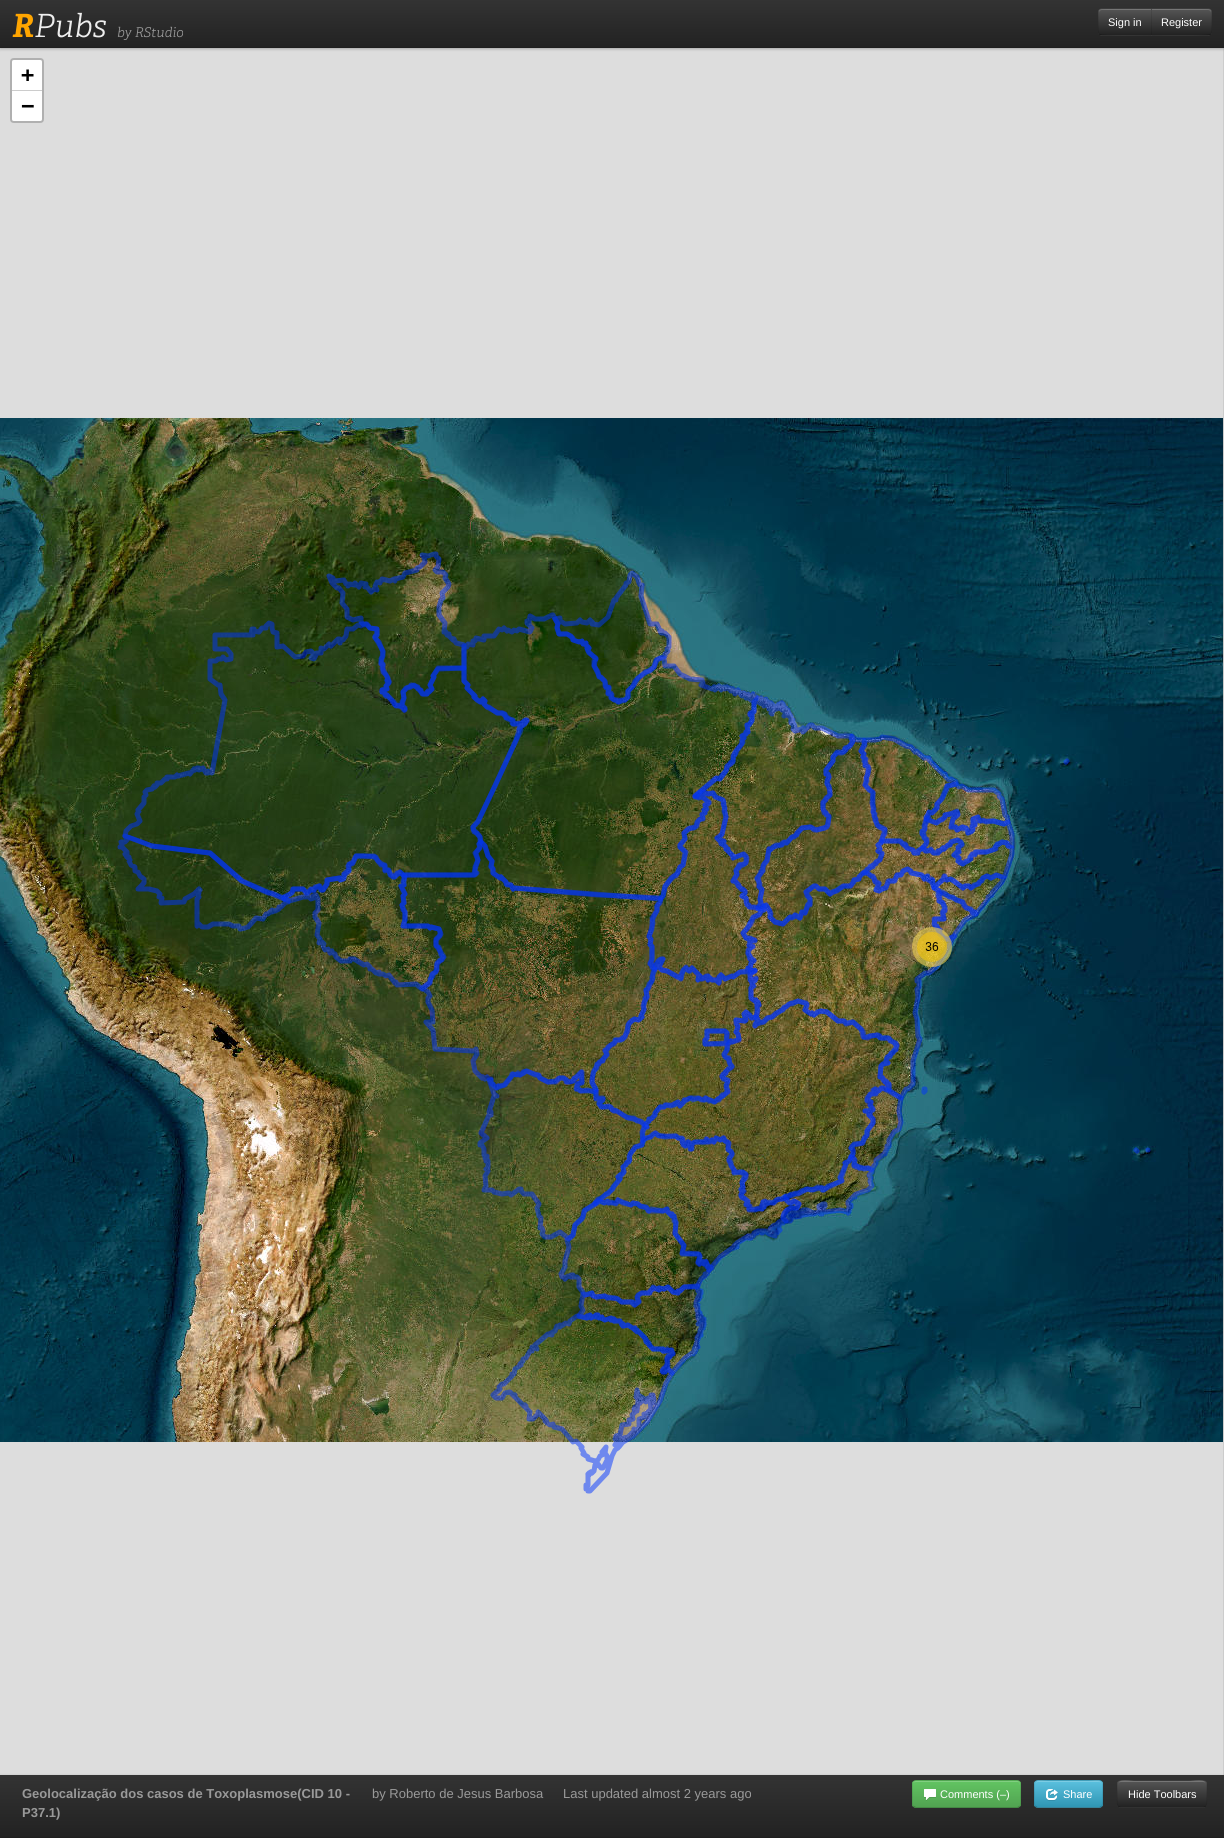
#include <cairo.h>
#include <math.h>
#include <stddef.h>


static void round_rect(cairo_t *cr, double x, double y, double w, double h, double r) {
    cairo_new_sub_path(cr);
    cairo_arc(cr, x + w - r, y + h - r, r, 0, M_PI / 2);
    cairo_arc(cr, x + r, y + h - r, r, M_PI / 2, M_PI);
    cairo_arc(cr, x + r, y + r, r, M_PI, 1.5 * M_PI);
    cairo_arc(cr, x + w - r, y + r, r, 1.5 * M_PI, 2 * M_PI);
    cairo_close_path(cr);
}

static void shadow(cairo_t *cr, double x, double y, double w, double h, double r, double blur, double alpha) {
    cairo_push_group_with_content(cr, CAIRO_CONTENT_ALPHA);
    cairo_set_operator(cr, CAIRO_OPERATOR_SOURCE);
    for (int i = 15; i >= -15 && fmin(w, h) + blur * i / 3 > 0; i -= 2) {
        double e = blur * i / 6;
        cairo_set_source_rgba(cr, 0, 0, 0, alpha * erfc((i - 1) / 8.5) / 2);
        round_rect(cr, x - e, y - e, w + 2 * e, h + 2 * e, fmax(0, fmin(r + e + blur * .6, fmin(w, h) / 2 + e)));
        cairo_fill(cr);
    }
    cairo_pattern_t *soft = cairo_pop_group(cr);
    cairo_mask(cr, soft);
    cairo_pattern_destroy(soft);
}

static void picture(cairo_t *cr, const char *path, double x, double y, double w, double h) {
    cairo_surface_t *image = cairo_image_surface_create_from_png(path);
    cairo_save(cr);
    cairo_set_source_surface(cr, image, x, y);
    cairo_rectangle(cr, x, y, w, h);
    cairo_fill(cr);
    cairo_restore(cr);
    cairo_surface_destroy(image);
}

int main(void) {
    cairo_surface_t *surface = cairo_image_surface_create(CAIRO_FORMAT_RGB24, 1224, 1838);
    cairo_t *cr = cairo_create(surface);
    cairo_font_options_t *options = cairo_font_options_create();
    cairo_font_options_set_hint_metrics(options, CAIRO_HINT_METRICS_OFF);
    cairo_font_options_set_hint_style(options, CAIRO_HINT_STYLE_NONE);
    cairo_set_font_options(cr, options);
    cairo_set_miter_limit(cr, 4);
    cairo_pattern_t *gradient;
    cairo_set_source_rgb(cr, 1, 1, 1);
    cairo_paint(cr);
    picture(cr, "img1.png", 0, 48, 1223, 1727);
    cairo_set_source_rgb(cr, 0.8, 0.8, 0.8);
    cairo_rectangle(cr, 1223, 48, 1, 1727);
    cairo_fill(cr);
    cairo_set_source_rgb(cr, 0, 0, 0);
    shadow(cr, 0, 1, 1224, 48, 0, 1.5, 0.25);
    gradient = cairo_pattern_create_linear(612, 0, 612, 48);
    cairo_pattern_add_color_stop_rgba(gradient, 0, 0.2, 0.2, 0.2, 1);
    cairo_pattern_add_color_stop_rgba(gradient, 1, 0.133, 0.133, 0.133, 1);
    cairo_set_source(cr, gradient);
    cairo_pattern_destroy(gradient);
    cairo_rectangle(cr, 0, 0, 1224, 47);
    cairo_fill(cr);
    cairo_set_source_rgb(cr, 0.122, 0.122, 0.122);
    cairo_rectangle(cr, 0, 47, 1224, 1);
    cairo_fill(cr);
    cairo_select_font_face(cr, "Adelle", CAIRO_FONT_SLANT_ITALIC, CAIRO_FONT_WEIGHT_BOLD);
    cairo_set_font_size(cr, 32);
    cairo_set_source_rgb(cr, 1, 0.647, 0);
    cairo_move_to(cr, 12, 37);
    cairo_show_text(cr, "R");
    cairo_select_font_face(cr, "Adelle Light", CAIRO_FONT_SLANT_ITALIC, CAIRO_FONT_WEIGHT_NORMAL);
    cairo_set_source_rgb(cr, 0.933, 0.933, 0.933);
    cairo_move_to(cr, 34, 37);
    cairo_show_text(cr, "Pubs");
    cairo_set_font_size(cr, 13.5);
    cairo_set_source_rgb(cr, 0.6, 0.6, 0.6);
    cairo_move_to(cr, 117, 37);
    cairo_show_text(cr, "by RStudio");
    cairo_set_source_rgb(cr, 0.255, 0.255, 0.255);
    cairo_new_path(cr);
    cairo_move_to(cr, 1102, 8);
    cairo_line_to(cr, 1152, 8);
    cairo_line_to(cr, 1152, 36);
    cairo_line_to(cr, 1102, 36);
    cairo_curve_to(cr, 1100, 36, 1098, 34, 1098, 32);
    cairo_line_to(cr, 1098, 12);
    cairo_curve_to(cr, 1098, 10, 1100, 8, 1102, 8);
    cairo_close_path(cr);
    cairo_fill(cr);
    cairo_save(cr);
    cairo_new_path(cr);
    cairo_move_to(cr, 1102, 8);
    cairo_line_to(cr, 1152, 8);
    cairo_line_to(cr, 1152, 36);
    cairo_line_to(cr, 1102, 36);
    cairo_curve_to(cr, 1100, 36, 1098, 34, 1098, 32);
    cairo_line_to(cr, 1098, 12);
    cairo_curve_to(cr, 1098, 10, 1100, 8, 1102, 8);
    cairo_close_path(cr);
    cairo_clip(cr);
    gradient = cairo_pattern_create_linear(1125, 9, 1125, 35);
    cairo_pattern_add_color_stop_rgba(gradient, 0, 0.333, 0.333, 0.333, 1);
    cairo_pattern_add_color_stop_rgba(gradient, 1, 0.133, 0.133, 0.133, 1);
    cairo_set_source(cr, gradient);
    cairo_pattern_destroy(gradient);
    cairo_rectangle(cr, 1098, 9, 53, 26);
    cairo_fill(cr);
    cairo_restore(cr);
    cairo_set_source_rgb(cr, 0.463, 0.463, 0.463);
    cairo_new_path(cr);
    cairo_move_to(cr, 1102, 10);
    cairo_line_to(cr, 1151, 10);
    cairo_line_to(cr, 1151, 9);
    cairo_line_to(cr, 1102, 9);
    cairo_curve_to(cr, 1100, 9, 1099, 10, 1099, 12);
    cairo_line_to(cr, 1099, 13);
    cairo_curve_to(cr, 1099, 11, 1100, 10, 1102, 10);
    cairo_close_path(cr);
    cairo_fill(cr);
    cairo_set_source_rgba(cr, 0, 0, 0, 0.1);
    cairo_new_path(cr);
    cairo_move_to(cr, 1102, 8);
    cairo_line_to(cr, 1099, 9);
    cairo_line_to(cr, 1100, 10);
    cairo_curve_to(cr, 1102, 8, 1145, 9, 1151, 9);
    cairo_line_to(cr, 1152, 8);
    cairo_close_path(cr);
    cairo_fill(cr);
    cairo_set_source_rgba(cr, 0, 0, 0, 0.25);
    cairo_new_path(cr);
    cairo_move_to(cr, 1152, 36);
    cairo_line_to(cr, 1151, 35);
    cairo_curve_to(cr, 1145, 35, 1102, 36, 1100, 34);
    cairo_line_to(cr, 1099, 35);
    cairo_line_to(cr, 1102, 36);
    cairo_close_path(cr);
    cairo_fill(cr);
    cairo_set_source_rgba(cr, 0, 0, 0, 0.1);
    cairo_new_path(cr);
    cairo_move_to(cr, 1098, 12);
    cairo_line_to(cr, 1098, 32);
    cairo_curve_to(cr, 1098, 33, 1098.5, 34, 1099, 35);
    cairo_line_to(cr, 1100, 34);
    cairo_curve_to(cr, 1099, 34, 1099, 33, 1099, 32);
    cairo_line_to(cr, 1099, 12);
    cairo_curve_to(cr, 1099, 11, 1099, 10, 1100, 10);
    cairo_line_to(cr, 1099, 9);
    cairo_curve_to(cr, 1098.5, 10, 1098, 11, 1098, 12);
    cairo_close_path(cr);
    cairo_fill(cr);
    cairo_select_font_face(cr, "Liberation Sans", CAIRO_FONT_SLANT_NORMAL, CAIRO_FONT_WEIGHT_NORMAL);
    cairo_set_font_size(cr, 11);
    cairo_set_source_rgb(cr, 1, 1, 1);
    cairo_move_to(cr, 1108, 26);
    cairo_show_text(cr, "Sign in");
    cairo_set_source_rgb(cr, 0.255, 0.255, 0.255);
    cairo_new_path(cr);
    cairo_move_to(cr, 1151, 8);
    cairo_line_to(cr, 1208, 8);
    cairo_curve_to(cr, 1210, 8, 1212, 10, 1212, 12);
    cairo_line_to(cr, 1212, 32);
    cairo_curve_to(cr, 1212, 34, 1210, 36, 1208, 36);
    cairo_line_to(cr, 1151, 36);
    cairo_close_path(cr);
    cairo_fill(cr);
    cairo_save(cr);
    cairo_new_path(cr);
    cairo_move_to(cr, 1151, 8);
    cairo_line_to(cr, 1208, 8);
    cairo_curve_to(cr, 1210, 8, 1212, 10, 1212, 12);
    cairo_line_to(cr, 1212, 32);
    cairo_curve_to(cr, 1212, 34, 1210, 36, 1208, 36);
    cairo_line_to(cr, 1151, 36);
    cairo_close_path(cr);
    cairo_clip(cr);
    gradient = cairo_pattern_create_linear(1182, 9, 1182, 35);
    cairo_pattern_add_color_stop_rgba(gradient, 0, 0.333, 0.333, 0.333, 1);
    cairo_pattern_add_color_stop_rgba(gradient, 1, 0.133, 0.133, 0.133, 1);
    cairo_set_source(cr, gradient);
    cairo_pattern_destroy(gradient);
    cairo_rectangle(cr, 1151, 9, 61, 26);
    cairo_fill(cr);
    cairo_restore(cr);
    cairo_set_source_rgb(cr, 0.463, 0.463, 0.463);
    cairo_new_path(cr);
    cairo_move_to(cr, 1152, 10);
    cairo_line_to(cr, 1208, 10);
    cairo_curve_to(cr, 1210, 10, 1211, 11, 1211, 13);
    cairo_line_to(cr, 1211, 12);
    cairo_curve_to(cr, 1211, 10, 1210, 9, 1208, 9);
    cairo_line_to(cr, 1152, 9);
    cairo_close_path(cr);
    cairo_fill(cr);
    cairo_set_source_rgba(cr, 0, 0, 0, 0.1);
    cairo_new_path(cr);
    cairo_move_to(cr, 1151, 8);
    cairo_line_to(cr, 1152, 9);
    cairo_curve_to(cr, 1159, 9, 1208, 8, 1210, 10);
    cairo_line_to(cr, 1211, 9);
    cairo_line_to(cr, 1208, 8);
    cairo_close_path(cr);
    cairo_fill(cr);
    cairo_new_path(cr);
    cairo_move_to(cr, 1212, 32);
    cairo_line_to(cr, 1212, 12);
    cairo_curve_to(cr, 1212, 11, 1211.5, 10, 1211, 9);
    cairo_line_to(cr, 1210, 10);
    cairo_curve_to(cr, 1211, 10, 1211, 11, 1211, 12);
    cairo_line_to(cr, 1211, 32);
    cairo_curve_to(cr, 1211, 33, 1211, 34, 1210, 34);
    cairo_line_to(cr, 1211, 35);
    cairo_curve_to(cr, 1211.5, 34, 1212, 33, 1212, 32);
    cairo_close_path(cr);
    cairo_fill(cr);
    cairo_set_source_rgba(cr, 0, 0, 0, 0.25);
    cairo_new_path(cr);
    cairo_move_to(cr, 1208, 36);
    cairo_line_to(cr, 1211, 35);
    cairo_line_to(cr, 1210, 34);
    cairo_curve_to(cr, 1208, 36, 1159, 35, 1152, 35);
    cairo_line_to(cr, 1151, 36);
    cairo_close_path(cr);
    cairo_fill(cr);
    cairo_set_source_rgba(cr, 0, 0, 0, 0.1);
    cairo_new_path(cr);
    cairo_move_to(cr, 1151, 8);
    cairo_line_to(cr, 1151, 36);
    cairo_line_to(cr, 1152, 35);
    cairo_line_to(cr, 1152, 9);
    cairo_close_path(cr);
    cairo_fill(cr);
    cairo_set_source_rgb(cr, 1, 1, 1);
    cairo_move_to(cr, 1161, 26);
    cairo_show_text(cr, "Register");
    cairo_set_source_rgb(cr, 0, 0, 0);
    shadow(cr, 0, 1776, 1224, 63, 0, 1.5, 0.25);
    gradient = cairo_pattern_create_linear(612, 1775, 612, 1838);
    cairo_pattern_add_color_stop_rgba(gradient, 0, 0.2, 0.2, 0.2, 1);
    cairo_pattern_add_color_stop_rgba(gradient, 1, 0.133, 0.133, 0.133, 1);
    cairo_set_source(cr, gradient);
    cairo_pattern_destroy(gradient);
    cairo_rectangle(cr, 0, 1775, 1224, 62);
    cairo_fill(cr);
    cairo_set_source_rgb(cr, 0.122, 0.122, 0.122);
    cairo_rectangle(cr, 0, 1837, 1224, 1);
    cairo_fill(cr);
    cairo_select_font_face(cr, "Liberation Sans", CAIRO_FONT_SLANT_NORMAL, CAIRO_FONT_WEIGHT_BOLD);
    cairo_set_font_size(cr, 13);
    cairo_set_source_rgb(cr, 0.6, 0.6, 0.6);
    cairo_move_to(cr, 22, 1798);
    cairo_show_text(cr, "Geolocalização dos casos de Toxoplasmose(CID 10 -");
    cairo_move_to(cr, 22, 1817);
    cairo_show_text(cr, "P37.1)");
    cairo_select_font_face(cr, "Liberation Sans", CAIRO_FONT_SLANT_NORMAL, CAIRO_FONT_WEIGHT_NORMAL);
    cairo_move_to(cr, 372, 1798);
    cairo_show_text(cr, "by Roberto de Jesus Barbosa");
    cairo_move_to(cr, 563, 1798);
    cairo_show_text(cr, "Last updated almost 2 years ago");
    cairo_set_source_rgb(cr, 0.357, 0.718, 0.357);
    round_rect(cr, 912, 1780, 109, 28, 4);
    cairo_fill(cr);
    cairo_save(cr);
    round_rect(cr, 912, 1780, 109, 28, 4);
    cairo_clip(cr);
    gradient = cairo_pattern_create_linear(967, 1781, 967, 1807);
    cairo_pattern_add_color_stop_rgba(gradient, 0, 0.384, 0.769, 0.384, 1);
    cairo_pattern_add_color_stop_rgba(gradient, 1, 0.318, 0.639, 0.318, 1);
    cairo_set_source(cr, gradient);
    cairo_pattern_destroy(gradient);
    cairo_rectangle(cr, 912, 1781, 109, 26);
    cairo_fill(cr);
    cairo_restore(cr);
    cairo_set_source_rgb(cr, 0.506, 0.812, 0.506);
    cairo_set_fill_rule(cr, CAIRO_FILL_RULE_EVEN_ODD);
    cairo_new_path(cr);
    cairo_move_to(cr, 916, 1782);
    cairo_line_to(cr, 1018, 1782);
    cairo_curve_to(cr, 1019, 1782, 1020, 1784, 1020, 1785);
    cairo_line_to(cr, 1020, 1784);
    cairo_curve_to(cr, 1020, 1782, 1019, 1781, 1017, 1781);
    cairo_line_to(cr, 916, 1781);
    cairo_curve_to(cr, 914, 1781, 913, 1782, 913, 1784);
    cairo_curve_to(cr, 913, 1783, 914, 1782, 916, 1782);
    cairo_close_path(cr);
    cairo_move_to(cr, 1020, 1802);
    cairo_line_to(cr, 1020, 1805);
    cairo_close_path(cr);
    cairo_fill(cr);
    cairo_new_path(cr);
    cairo_move_to(cr, 1019.5, 1806.5);
    cairo_line_to(cr, 1017.5, 1807.5);
    cairo_line_to(cr, 933, 1807.5);
    cairo_line_to(cr, 916, 1807.5);
    cairo_line_to(cr, 913.5, 1806.5);
    cairo_set_source_rgba(cr, 0, 0, 0, 0.25);
    cairo_set_line_width(cr, 1);
    cairo_stroke(cr);
    cairo_new_path(cr);
    cairo_move_to(cr, 913.5, 1806.5);
    cairo_curve_to(cr, 911.5, 1804.5, 912.5, 1800, 912.5, 1797.5);
    cairo_curve_to(cr, 912.5, 1776.5, 909.5, 1780.5, 933, 1780.5);
    cairo_line_to(cr, 1000, 1780.5);
    cairo_curve_to(cr, 1023.5, 1780.5, 1020.5, 1776.5, 1020.5, 1797.5);
    cairo_curve_to(cr, 1020.5, 1800, 1021.5, 1804.5, 1019.5, 1806.5);
    cairo_set_source_rgba(cr, 0, 0, 0, 0.1);
    cairo_stroke(cr);
    picture(cr, "img2.png", 924, 1789, 12, 12);
    cairo_set_font_size(cr, 11);
    cairo_set_source_rgb(cr, 1, 1, 1);
    cairo_move_to(cr, 940, 1798);
    cairo_show_text(cr, "Comments (–)");
    cairo_set_source_rgb(cr, 0.286, 0.686, 0.804);
    round_rect(cr, 1034, 1780, 69, 28, 4);
    cairo_fill(cr);
    cairo_save(cr);
    cairo_set_fill_rule(cr, CAIRO_FILL_RULE_WINDING);
    round_rect(cr, 1034, 1780, 69, 28, 4);
    cairo_clip(cr);
    gradient = cairo_pattern_create_linear(1069, 1781, 1069, 1807);
    cairo_pattern_add_color_stop_rgba(gradient, 0, 0.357, 0.753, 0.871, 1);
    cairo_pattern_add_color_stop_rgba(gradient, 1, 0.184, 0.588, 0.706, 1);
    cairo_set_source(cr, gradient);
    cairo_pattern_destroy(gradient);
    cairo_rectangle(cr, 1034, 1781, 69, 26);
    cairo_fill(cr);
    cairo_restore(cr);
    cairo_set_source_rgba(cr, 1, 1, 1, 0.2);
    cairo_set_fill_rule(cr, CAIRO_FILL_RULE_WINDING);
    cairo_new_path(cr);
    cairo_move_to(cr, 1038, 1782);
    cairo_line_to(cr, 1099, 1782);
    cairo_curve_to(cr, 1101, 1782, 1102, 1783, 1102, 1785);
    cairo_curve_to(cr, 1102, 1778, 1093, 1781, 1089, 1781);
    cairo_line_to(cr, 1048, 1781);
    cairo_curve_to(cr, 1044, 1781, 1035, 1778, 1035, 1785);
    cairo_curve_to(cr, 1035, 1783, 1036, 1782, 1038, 1782);
    cairo_close_path(cr);
    cairo_fill(cr);
    cairo_new_path(cr);
    cairo_move_to(cr, 1101.5, 1806.5);
    cairo_line_to(cr, 1099.5, 1807.5);
    cairo_line_to(cr, 1037.5, 1807.5);
    cairo_line_to(cr, 1035.5, 1806.5);
    cairo_set_source_rgba(cr, 0, 0, 0, 0.25);
    cairo_stroke(cr);
    cairo_new_path(cr);
    cairo_move_to(cr, 1035.5, 1806.5);
    cairo_curve_to(cr, 1033.5, 1804, 1034.5, 1796.5, 1034.5, 1794);
    cairo_curve_to(cr, 1034.5, 1779, 1032.5, 1780.5, 1048, 1780.5);
    cairo_line_to(cr, 1089, 1780.5);
    cairo_curve_to(cr, 1104.5, 1780.5, 1102.5, 1779, 1102.5, 1794);
    cairo_curve_to(cr, 1102.5, 1796.5, 1103.5, 1804, 1101.5, 1806.5);
    cairo_set_source_rgba(cr, 0, 0, 0, 0.1);
    cairo_stroke(cr);
    picture(cr, "img3.png", 1046, 1789, 12, 12);
    cairo_set_source_rgb(cr, 1, 1, 1);
    cairo_move_to(cr, 1063, 1798);
    cairo_show_text(cr, "Share");
    cairo_set_source_rgb(cr, 0.255, 0.255, 0.255);
    round_rect(cr, 1117, 1780, 90, 28, 4);
    cairo_fill(cr);
    cairo_save(cr);
    round_rect(cr, 1117, 1780, 90, 28, 4);
    cairo_clip(cr);
    gradient = cairo_pattern_create_linear(1162, 1781, 1162, 1807);
    cairo_pattern_add_color_stop_rgba(gradient, 0, 0.333, 0.333, 0.333, 1);
    cairo_pattern_add_color_stop_rgba(gradient, 1, 0.133, 0.133, 0.133, 1);
    cairo_set_source(cr, gradient);
    cairo_pattern_destroy(gradient);
    cairo_rectangle(cr, 1117, 1781, 90, 26);
    cairo_fill(cr);
    cairo_restore(cr);
    cairo_set_source_rgba(cr, 1, 1, 1, 0.2);
    cairo_new_path(cr);
    cairo_move_to(cr, 1121, 1782);
    cairo_line_to(cr, 1203, 1782);
    cairo_curve_to(cr, 1205, 1782, 1206, 1783, 1206, 1785);
    cairo_curve_to(cr, 1206, 1777, 1193, 1781, 1189, 1781);
    cairo_line_to(cr, 1135, 1781);
    cairo_curve_to(cr, 1131, 1781, 1118, 1777, 1118, 1785);
    cairo_curve_to(cr, 1118, 1783, 1119, 1782, 1121, 1782);
    cairo_close_path(cr);
    cairo_fill(cr);
    cairo_new_path(cr);
    cairo_move_to(cr, 1205.5, 1806.5);
    cairo_line_to(cr, 1203.5, 1807.5);
    cairo_line_to(cr, 1120.5, 1807.5);
    cairo_line_to(cr, 1118.5, 1806.5);
    cairo_set_source_rgba(cr, 0, 0, 0, 0.25);
    cairo_stroke(cr);
    cairo_new_path(cr);
    cairo_move_to(cr, 1118.5, 1806.5);
    cairo_curve_to(cr, 1116.5, 1804.5, 1117.5, 1800, 1117.5, 1797.5);
    cairo_curve_to(cr, 1117.5, 1778, 1114.5, 1780.5, 1134.5, 1780.5);
    cairo_line_to(cr, 1189.5, 1780.5);
    cairo_curve_to(cr, 1209.5, 1780.5, 1206.5, 1778, 1206.5, 1797.5);
    cairo_curve_to(cr, 1206.5, 1800, 1207.5, 1804.5, 1205.5, 1806.5);
    cairo_set_source_rgba(cr, 0, 0, 0, 0.1);
    cairo_stroke(cr);
    cairo_set_source_rgb(cr, 1, 1, 1);
    cairo_move_to(cr, 1128, 1798);
    cairo_show_text(cr, "Hide Toolbars");
    cairo_surface_write_to_png(surface, "page.png");
    cairo_font_options_destroy(options);
    cairo_destroy(cr);
    cairo_surface_destroy(surface);
    return 0;
}
